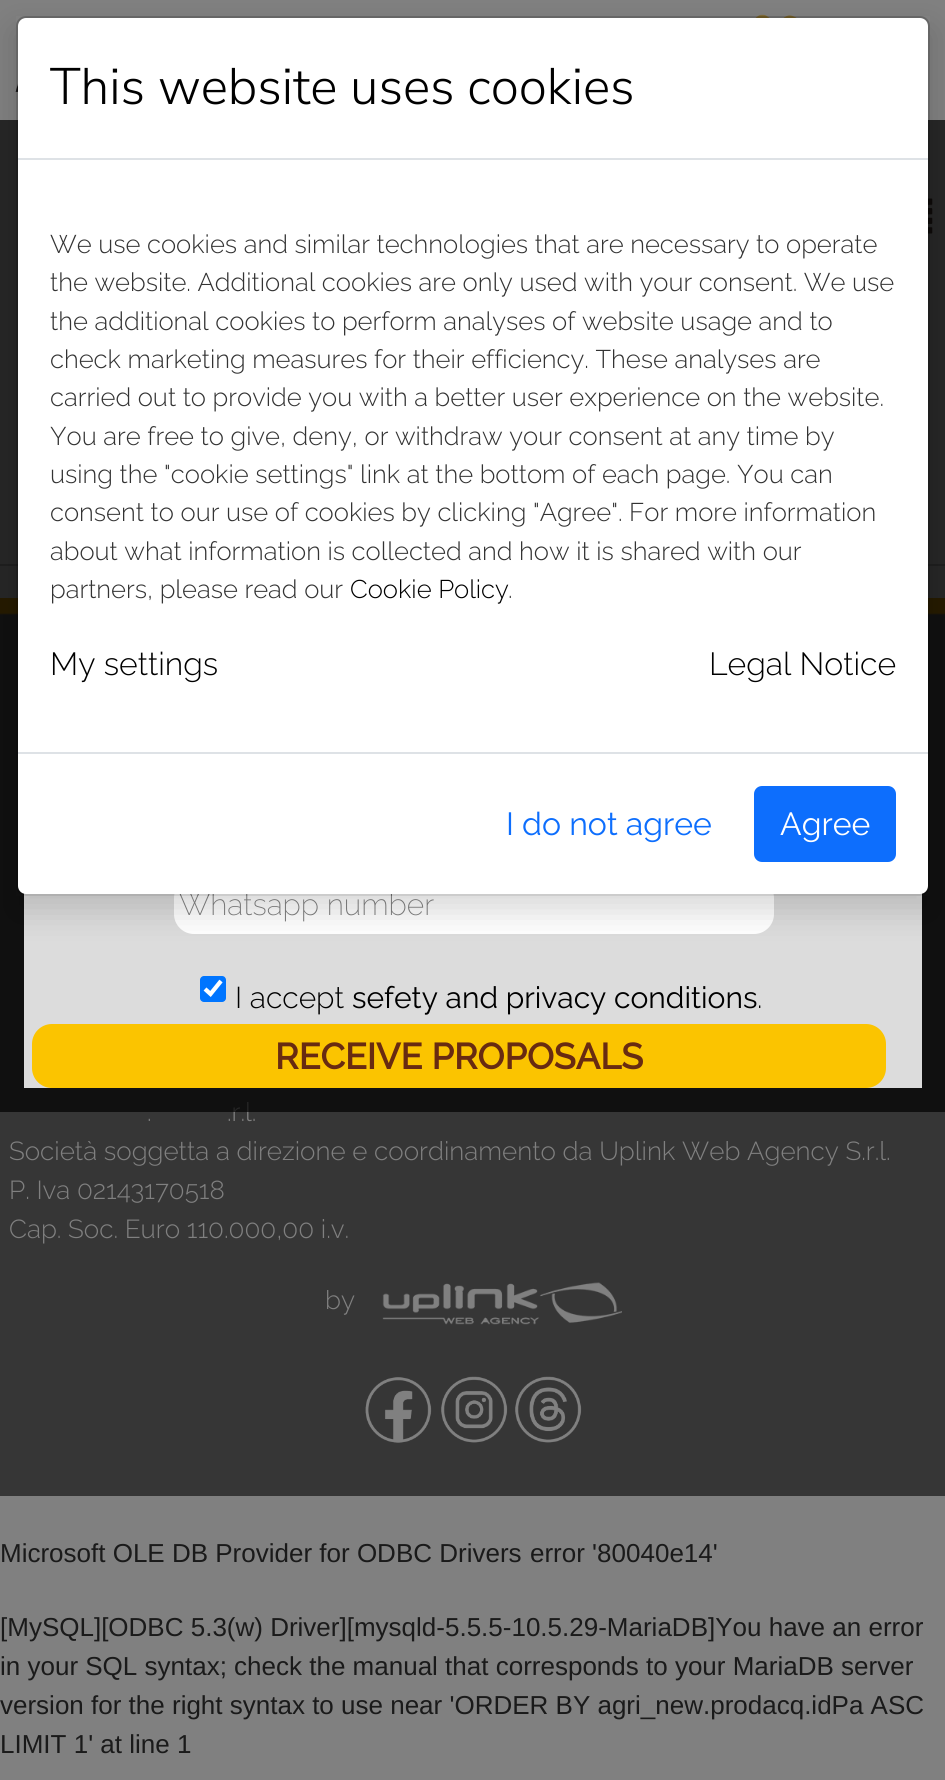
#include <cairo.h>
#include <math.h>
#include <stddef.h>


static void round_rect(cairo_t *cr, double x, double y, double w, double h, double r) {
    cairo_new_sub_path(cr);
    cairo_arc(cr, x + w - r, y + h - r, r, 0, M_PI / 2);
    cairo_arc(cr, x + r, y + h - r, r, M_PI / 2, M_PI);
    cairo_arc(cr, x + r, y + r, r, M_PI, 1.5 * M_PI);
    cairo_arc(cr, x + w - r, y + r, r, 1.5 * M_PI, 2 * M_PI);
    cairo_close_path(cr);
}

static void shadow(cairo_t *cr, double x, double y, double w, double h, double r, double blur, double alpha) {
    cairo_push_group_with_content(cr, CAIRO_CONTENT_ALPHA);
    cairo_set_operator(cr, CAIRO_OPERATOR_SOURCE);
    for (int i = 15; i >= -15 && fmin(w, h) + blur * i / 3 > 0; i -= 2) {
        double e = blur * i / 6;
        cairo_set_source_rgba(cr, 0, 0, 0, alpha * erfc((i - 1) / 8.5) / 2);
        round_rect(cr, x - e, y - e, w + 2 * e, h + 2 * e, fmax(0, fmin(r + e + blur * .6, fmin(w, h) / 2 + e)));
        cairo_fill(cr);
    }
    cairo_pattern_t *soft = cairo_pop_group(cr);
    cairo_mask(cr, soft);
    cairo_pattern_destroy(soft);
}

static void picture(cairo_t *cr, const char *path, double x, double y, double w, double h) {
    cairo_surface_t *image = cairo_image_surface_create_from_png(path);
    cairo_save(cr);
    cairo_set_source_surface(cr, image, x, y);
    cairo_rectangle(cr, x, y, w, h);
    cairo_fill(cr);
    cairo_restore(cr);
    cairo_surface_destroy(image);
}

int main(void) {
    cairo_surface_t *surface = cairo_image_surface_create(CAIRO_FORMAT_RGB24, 945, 1780);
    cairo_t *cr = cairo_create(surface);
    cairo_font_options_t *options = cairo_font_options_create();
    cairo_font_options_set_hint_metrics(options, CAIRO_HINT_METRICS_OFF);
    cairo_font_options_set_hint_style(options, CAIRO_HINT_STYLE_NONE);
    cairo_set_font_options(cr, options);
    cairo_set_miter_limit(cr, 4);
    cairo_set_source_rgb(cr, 0.502, 0.502, 0.502);
    cairo_paint(cr);
    picture(cr, "img1.png", 755, 14, 42, 4);
    picture(cr, "img2.png", 15, 83, 3, 9);
    picture(cr, "img3.png", 928, 198, 5, 36);
    cairo_set_source_rgb(cr, 0.4, 0.4, 0.4);
    cairo_rectangle(cr, 0, 564, 945, 2);
    cairo_fill(cr);
    picture(cr, "img4.png", 0, 598, 945, 898);
    cairo_select_font_face(cr, "Raleway Light", CAIRO_FONT_SLANT_NORMAL, CAIRO_FONT_WEIGHT_NORMAL);
    cairo_set_font_size(cr, 26);
    cairo_set_source_rgb(cr, 0.502, 0.502, 0.502);
    cairo_move_to(cr, 227, 1121);
    cairo_show_text(cr, ".r.l.");
    cairo_set_source_rgba(cr, 0, 0, 0, 0.7);
    cairo_rectangle(cr, 0, 120, 945, 992);
    cairo_fill(cr);
    cairo_set_source_rgba(cr, 0.949, 0.949, 0.949, 0.9);
    cairo_rectangle(cr, 24, 893, 898, 195);
    cairo_fill(cr);
    cairo_set_source_rgb(cr, 1, 1, 1);
    round_rect(cr, 174, 878, 600, 56, 20);
    cairo_fill(cr);
    cairo_save(cr);
    cairo_set_fill_rule(cr, CAIRO_FILL_RULE_EVEN_ODD);
    cairo_new_path(cr);
    cairo_move_to(cr, 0, 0);
    cairo_line_to(cr, 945, 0);
    cairo_line_to(cr, 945, 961);
    cairo_line_to(cr, 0, 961);
    cairo_close_path(cr);
    cairo_move_to(cr, 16, 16);
    cairo_line_to(cr, 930, 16);
    cairo_line_to(cr, 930, 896);
    cairo_line_to(cr, 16, 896);
    cairo_close_path(cr);
    cairo_clip(cr);
    cairo_set_source_rgb(cr, 0, 0, 0);
    shadow(cr, 16, 32, 914, 880, 0, 16, 0.15);
    cairo_restore(cr);
    cairo_select_font_face(cr, "Raleway ExtraLight", CAIRO_FONT_SLANT_NORMAL, CAIRO_FONT_WEIGHT_NORMAL);
    cairo_set_font_size(cr, 30);
    cairo_set_source_rgb(cr, 0.459, 0.459, 0.459);
    cairo_move_to(cr, 179, 915);
    cairo_show_text(cr, "Whatsapp number");
    cairo_set_source_rgb(cr, 1, 1, 1);
    round_rect(cr, 18, 18, 910, 876, 8);
    cairo_fill(cr);
    round_rect(cr, 17, 17, 912, 878, 9);
    cairo_set_source_rgba(cr, 0, 0, 0, 0.2);
    cairo_stroke(cr);
    cairo_set_source_rgb(cr, 0.871, 0.886, 0.902);
    cairo_rectangle(cr, 18, 158, 910, 2);
    cairo_fill(cr);
    cairo_select_font_face(cr, "Nunito Sans Light", CAIRO_FONT_SLANT_NORMAL, CAIRO_FONT_WEIGHT_NORMAL);
    cairo_set_font_size(cr, 51.25);
    cairo_set_source_rgb(cr, 0, 0, 0);
    cairo_move_to(cr, 50, 104);
    cairo_show_text(cr, "This website uses cookies");
    cairo_select_font_face(cr, "Raleway Light", CAIRO_FONT_SLANT_NORMAL, CAIRO_FONT_WEIGHT_NORMAL);
    cairo_set_font_size(cr, 25.6);
    cairo_set_source_rgb(cr, 0.2, 0.2, 0.2);
    cairo_move_to(cr, 50, 253);
    cairo_show_text(cr, "We use cookies and similar technologies that are necessary to operate");
    cairo_move_to(cr, 50, 291);
    cairo_show_text(cr, "the website. Additional cookies are only used with your consent. We use");
    cairo_move_to(cr, 50, 330);
    cairo_show_text(cr, "the additional cookies to perform analyses of website usage and to");
    cairo_move_to(cr, 50, 368);
    cairo_show_text(cr, "check marketing measures for their efficiency. These analyses are");
    cairo_move_to(cr, 50, 406);
    cairo_show_text(cr, "carried out to provide you with a better user experience on the website.");
    cairo_move_to(cr, 50, 445);
    cairo_show_text(cr, "You are free to give, deny, or withdraw your consent at any time by");
    cairo_move_to(cr, 50, 483);
    cairo_show_text(cr, "using the \"cookie settings\" link at the bottom of each page. You can");
    cairo_move_to(cr, 50, 521);
    cairo_show_text(cr, "consent to our use of cookies by clicking \"Agree\". For more information");
    cairo_move_to(cr, 50, 560);
    cairo_show_text(cr, "about what information is collected and how it is shared with our");
    cairo_move_to(cr, 50, 598);
    cairo_show_text(cr, "partners, please read our");
    cairo_set_source_rgb(cr, 0, 0, 0);
    cairo_move_to(cr, 350, 598);
    cairo_show_text(cr, "Cookie Policy");
    cairo_set_source_rgb(cr, 0.2, 0.2, 0.2);
    cairo_move_to(cr, 508, 598);
    cairo_show_text(cr, ".");
    cairo_set_font_size(cr, 32);
    cairo_set_source_rgb(cr, 0, 0, 0);
    cairo_move_to(cr, 50, 675);
    cairo_show_text(cr, "My settings");
    cairo_move_to(cr, 709, 675);
    cairo_show_text(cr, "Legal Notice");
    cairo_set_source_rgb(cr, 0.871, 0.886, 0.902);
    cairo_rectangle(cr, 18, 752, 910, 2);
    cairo_fill(cr);
    cairo_select_font_face(cr, "Raleway", CAIRO_FONT_SLANT_NORMAL, CAIRO_FONT_WEIGHT_NORMAL);
    cairo_set_source_rgb(cr, 0.051, 0.431, 0.992);
    cairo_move_to(cr, 506, 835);
    cairo_show_text(cr, "I do not agree");
    round_rect(cr, 755, 787, 140, 74, 7);
    cairo_fill_preserve(cr);
    cairo_stroke(cr);
    cairo_set_source_rgb(cr, 1, 1, 1);
    cairo_move_to(cr, 780, 835);
    cairo_show_text(cr, "Agree");
    cairo_set_source_rgb(cr, 0, 0.459, 1);
    round_rect(cr, 200, 976, 26, 26, 4);
    cairo_fill(cr);
    cairo_new_path(cr);
    cairo_move_to(cr, 205, 989);
    cairo_line_to(cr, 210.5, 994);
    cairo_line_to(cr, 221, 981);
    cairo_set_source_rgb(cr, 1, 1, 1);
    cairo_set_line_width(cr, 4.2);
    cairo_stroke(cr);
    cairo_select_font_face(cr, "Raleway Light", CAIRO_FONT_SLANT_NORMAL, CAIRO_FONT_WEIGHT_NORMAL);
    cairo_set_font_size(cr, 30);
    cairo_set_source_rgb(cr, 0, 0, 0);
    cairo_move_to(cr, 235, 1008);
    cairo_show_text(cr, "I accept");
    cairo_select_font_face(cr, "Raleway", CAIRO_FONT_SLANT_NORMAL, CAIRO_FONT_WEIGHT_NORMAL);
    cairo_move_to(cr, 352, 1008);
    cairo_show_text(cr, "sefety and privacy conditions");
    cairo_select_font_face(cr, "Raleway Light", CAIRO_FONT_SLANT_NORMAL, CAIRO_FONT_WEIGHT_NORMAL);
    cairo_move_to(cr, 757, 1008);
    cairo_show_text(cr, ".");
    cairo_set_source_rgb(cr, 0.984, 0.769, 0);
    round_rect(cr, 32, 1024, 854, 64, 20);
    cairo_fill(cr);
    cairo_select_font_face(cr, "Raleway", CAIRO_FONT_SLANT_NORMAL, CAIRO_FONT_WEIGHT_BOLD);
    cairo_set_font_size(cr, 36);
    cairo_set_source_rgb(cr, 0.408, 0.169, 0.067);
    cairo_move_to(cr, 275, 1069);
    cairo_show_text(cr, "RECEIVE PROPOSALS");
    cairo_select_font_face(cr, "Raleway Light", CAIRO_FONT_SLANT_NORMAL, CAIRO_FONT_WEIGHT_NORMAL);
    cairo_set_font_size(cr, 26);
    cairo_set_source_rgb(cr, 0.502, 0.502, 0.502);
    cairo_move_to(cr, 147, 1121);
    cairo_show_text(cr, ".");
    cairo_move_to(cr, 9, 1160);
    cairo_show_text(cr, "Società soggetta a direzione e coordinamento da Uplink Web Agency S.r.l.");
    cairo_move_to(cr, 9, 1199);
    cairo_show_text(cr, "P. Iva 02143170518");
    cairo_move_to(cr, 9, 1238);
    cairo_show_text(cr, "Cap. Soc. Euro 110.000,00 i.v.");
    cairo_move_to(cr, 325, 1309);
    cairo_show_text(cr, "by");
    picture(cr, "img5.png", 382, 1282, 240, 43);
    picture(cr, "img6.png", 365, 1377, 67, 66);
    picture(cr, "img7.png", 441, 1376, 67, 67);
    picture(cr, "img8.png", 515, 1376, 67, 67);
    cairo_select_font_face(cr, "Liberation Sans", CAIRO_FONT_SLANT_NORMAL, CAIRO_FONT_WEIGHT_NORMAL);
    cairo_set_source_rgb(cr, 0.102, 0.102, 0.102);
    cairo_move_to(cr, 0, 1562);
    cairo_show_text(cr, "Microsoft OLE DB Provider for ODBC Drivers");
    cairo_move_to(cr, 530, 1562);
    cairo_show_text(cr, "error '80040e14'");
    cairo_move_to(cr, 0, 1636);
    cairo_show_text(cr, "[MySQL][ODBC 5.3(w) Driver][mysqld-5.5.5-10.5.29-MariaDB]You have an error");
    cairo_move_to(cr, 0, 1675);
    cairo_show_text(cr, "in your SQL syntax; check the manual that corresponds to your MariaDB server");
    cairo_move_to(cr, 0, 1714);
    cairo_show_text(cr, "version for the right syntax to use near 'ORDER BY agri_new.prodacq.idPa ASC");
    cairo_move_to(cr, 0, 1753);
    cairo_show_text(cr, "LIMIT 1' at line 1");
    cairo_surface_write_to_png(surface, "page.png");
    cairo_font_options_destroy(options);
    cairo_destroy(cr);
    cairo_surface_destroy(surface);
    return 0;
}
